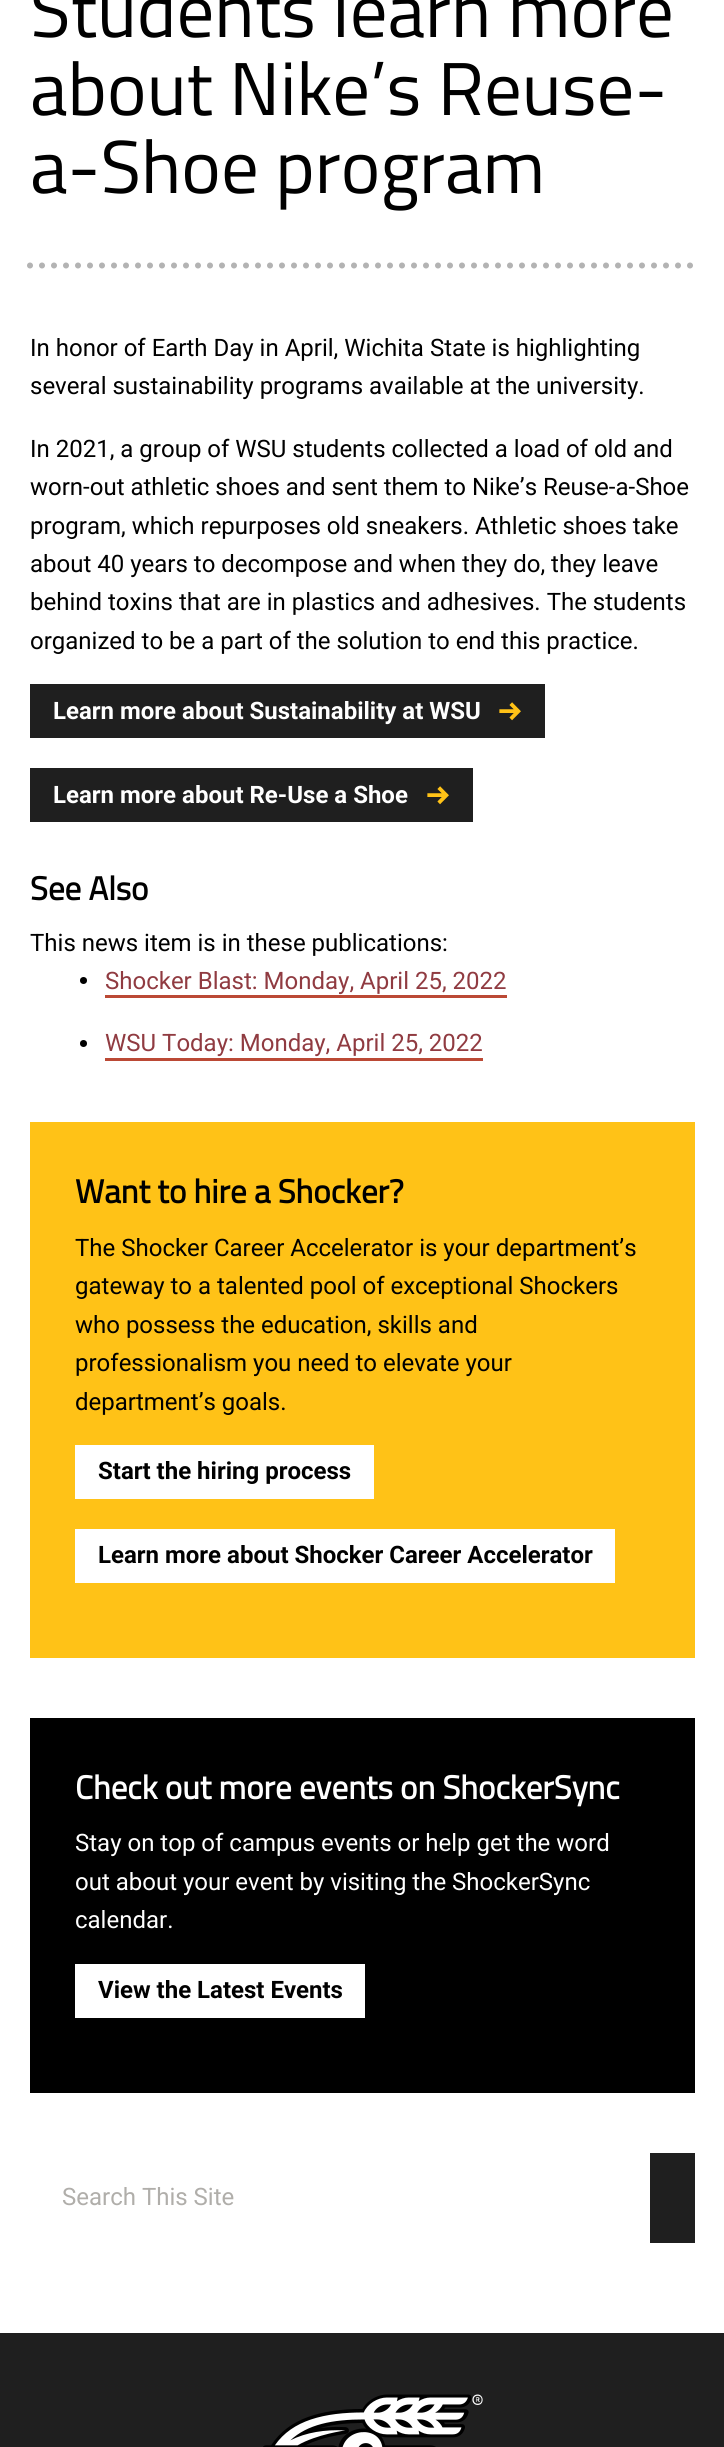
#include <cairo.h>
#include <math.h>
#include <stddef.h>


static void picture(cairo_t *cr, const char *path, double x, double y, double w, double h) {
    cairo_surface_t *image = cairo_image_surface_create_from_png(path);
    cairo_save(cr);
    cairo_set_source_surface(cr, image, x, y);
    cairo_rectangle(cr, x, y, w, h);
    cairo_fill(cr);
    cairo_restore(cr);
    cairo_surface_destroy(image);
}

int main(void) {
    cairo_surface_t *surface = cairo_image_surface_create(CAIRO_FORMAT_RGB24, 724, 2447);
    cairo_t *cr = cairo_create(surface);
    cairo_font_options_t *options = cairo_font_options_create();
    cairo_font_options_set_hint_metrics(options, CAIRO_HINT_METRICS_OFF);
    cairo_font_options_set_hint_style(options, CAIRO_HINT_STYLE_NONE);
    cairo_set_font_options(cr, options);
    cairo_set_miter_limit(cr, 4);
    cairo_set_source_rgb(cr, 1, 1, 1);
    cairo_paint(cr);
    cairo_new_path(cr);
    cairo_move_to(cr, 30, 265.5);
    cairo_line_to(cr, 694.5, 265.5);
    cairo_set_source_rgb(cr, 0.702, 0.702, 0.702);
    cairo_set_line_width(cr, 6);
    cairo_set_line_cap(cr, CAIRO_LINE_CAP_ROUND);
    cairo_set_dash(cr, (double[]){0, 12}, 2, 0);
    cairo_stroke(cr);
    cairo_select_font_face(cr, "Titillium Web", CAIRO_FONT_SLANT_NORMAL, CAIRO_FONT_WEIGHT_NORMAL);
    cairo_set_font_size(cr, 75);
    cairo_set_source_rgb(cr, 0, 0, 0);
    cairo_move_to(cr, 30, 37);
    cairo_show_text(cr, "Students learn more");
    cairo_move_to(cr, 30, 115);
    cairo_show_text(cr, "about Nike’s Reuse-");
    cairo_move_to(cr, 30, 193);
    cairo_show_text(cr, "a-Shoe program");
    cairo_select_font_face(cr, "Roboto", CAIRO_FONT_SLANT_NORMAL, CAIRO_FONT_WEIGHT_NORMAL);
    cairo_set_font_size(cr, 24);
    cairo_move_to(cr, 30, 356);
    cairo_show_text(cr, "In honor of Earth Day in April, Wichita State is highlighting");
    cairo_move_to(cr, 30, 394);
    cairo_show_text(cr, "several sustainability programs available at the university.");
    cairo_move_to(cr, 30, 457);
    cairo_show_text(cr, "In 2021, a group of WSU students collected a load of old and");
    cairo_move_to(cr, 30, 495);
    cairo_show_text(cr, "worn-out athletic shoes and sent them to Nike’s Reuse-a-Shoe");
    cairo_move_to(cr, 30, 534);
    cairo_show_text(cr, "program, which repurposes old sneakers. Athletic shoes take");
    cairo_move_to(cr, 30, 572);
    cairo_show_text(cr, "about 40 years to decompose and when they do, they leave");
    cairo_move_to(cr, 30, 610);
    cairo_show_text(cr, "behind toxins that are in plastics and adhesives. The students");
    cairo_move_to(cr, 30, 649);
    cairo_show_text(cr, "organized to be a part of the solution to end this practice.");
    cairo_set_source_rgb(cr, 0.122, 0.122, 0.122);
    cairo_rectangle(cr, 30, 684, 515, 54);
    cairo_fill(cr);
    cairo_select_font_face(cr, "Roboto", CAIRO_FONT_SLANT_NORMAL, CAIRO_FONT_WEIGHT_BOLD);
    cairo_set_source_rgb(cr, 1, 1, 1);
    cairo_move_to(cr, 53, 719);
    cairo_show_text(cr, "Learn more about Sustainability at WSU");
    picture(cr, "img1.png", 499, 702, 22, 19);
    cairo_set_source_rgb(cr, 0.122, 0.122, 0.122);
    cairo_rectangle(cr, 30, 768, 443, 54);
    cairo_fill(cr);
    cairo_set_source_rgb(cr, 1, 1, 1);
    cairo_move_to(cr, 53, 803);
    cairo_show_text(cr, "Learn more about Re-Use a Shoe");
    picture(cr, "img2.png", 427, 786, 22, 19);
    cairo_select_font_face(cr, "Titillium Web", CAIRO_FONT_SLANT_NORMAL, CAIRO_FONT_WEIGHT_BOLD);
    cairo_set_font_size(cr, 33);
    cairo_set_source_rgb(cr, 0, 0, 0);
    cairo_move_to(cr, 30, 900);
    cairo_show_text(cr, "See Also");
    cairo_select_font_face(cr, "Roboto", CAIRO_FONT_SLANT_NORMAL, CAIRO_FONT_WEIGHT_NORMAL);
    cairo_set_font_size(cr, 24);
    cairo_move_to(cr, 30, 951);
    cairo_show_text(cr, "This news item is in these publications:");
    cairo_new_path(cr);
    cairo_arc(cr, 83.5, 980.5, 3.5, 0, 2 * M_PI);
    cairo_fill(cr);
    cairo_set_source_rgb(cr, 0.565, 0.231, 0.255);
    cairo_move_to(cr, 105, 989);
    cairo_show_text(cr, "Shocker Blast: Monday, April 25, 2022");
    cairo_set_source_rgb(cr, 0.733, 0.286, 0.208);
    cairo_rectangle(cr, 105, 995, 402, 3);
    cairo_fill(cr);
    cairo_set_source_rgb(cr, 0, 0, 0);
    cairo_arc(cr, 83.5, 1043.5, 3.5, 0, 2 * M_PI);
    cairo_fill(cr);
    cairo_set_source_rgb(cr, 0.565, 0.231, 0.255);
    cairo_move_to(cr, 105, 1051);
    cairo_show_text(cr, "WSU Today: Monday, April 25, 2022");
    cairo_set_source_rgb(cr, 0.733, 0.286, 0.208);
    cairo_rectangle(cr, 105, 1058, 378, 3);
    cairo_fill(cr);
    cairo_set_source_rgb(cr, 1, 0.761, 0.09);
    cairo_rectangle(cr, 30, 1122, 665, 536);
    cairo_fill(cr);
    cairo_select_font_face(cr, "Titillium Web", CAIRO_FONT_SLANT_NORMAL, CAIRO_FONT_WEIGHT_BOLD);
    cairo_set_font_size(cr, 33);
    cairo_set_source_rgb(cr, 0, 0, 0);
    cairo_move_to(cr, 75, 1203);
    cairo_show_text(cr, "Want to hire a Shocker?");
    cairo_select_font_face(cr, "Roboto", CAIRO_FONT_SLANT_NORMAL, CAIRO_FONT_WEIGHT_NORMAL);
    cairo_set_font_size(cr, 24);
    cairo_move_to(cr, 75, 1256);
    cairo_show_text(cr, "The Shocker Career Accelerator is your department’s");
    cairo_move_to(cr, 75, 1294);
    cairo_show_text(cr, "gateway to a talented pool of exceptional Shockers");
    cairo_move_to(cr, 75, 1333);
    cairo_show_text(cr, "who possess the education, skills and");
    cairo_move_to(cr, 75, 1371);
    cairo_show_text(cr, "professionalism you need to elevate your");
    cairo_move_to(cr, 75, 1410);
    cairo_show_text(cr, "department’s goals.");
    cairo_set_source_rgb(cr, 1, 1, 1);
    cairo_rectangle(cr, 75, 1445, 299, 54);
    cairo_fill(cr);
    cairo_select_font_face(cr, "Roboto", CAIRO_FONT_SLANT_NORMAL, CAIRO_FONT_WEIGHT_BOLD);
    cairo_set_source_rgb(cr, 0, 0, 0);
    cairo_move_to(cr, 98, 1479);
    cairo_show_text(cr, "Start the hiring process");
    cairo_set_source_rgb(cr, 1, 1, 1);
    cairo_rectangle(cr, 75, 1529, 540, 54);
    cairo_fill(cr);
    cairo_set_source_rgb(cr, 0, 0, 0);
    cairo_move_to(cr, 98, 1563);
    cairo_show_text(cr, "Learn more about Shocker Career Accelerator");
    cairo_rectangle(cr, 30, 1718, 665, 375);
    cairo_fill(cr);
    cairo_select_font_face(cr, "Titillium Web", CAIRO_FONT_SLANT_NORMAL, CAIRO_FONT_WEIGHT_BOLD);
    cairo_set_font_size(cr, 33);
    cairo_set_source_rgb(cr, 1, 1, 1);
    cairo_move_to(cr, 75, 1799);
    cairo_show_text(cr, "Check out more events on ShockerSync");
    cairo_select_font_face(cr, "Roboto", CAIRO_FONT_SLANT_NORMAL, CAIRO_FONT_WEIGHT_NORMAL);
    cairo_set_font_size(cr, 24);
    cairo_move_to(cr, 75, 1851);
    cairo_show_text(cr, "Stay on top of campus events or help get the word");
    cairo_move_to(cr, 75, 1890);
    cairo_show_text(cr, "out about your event by visiting the ShockerSync");
    cairo_move_to(cr, 75, 1928);
    cairo_show_text(cr, "calendar.");
    cairo_rectangle(cr, 75, 1964, 290, 54);
    cairo_fill(cr);
    cairo_select_font_face(cr, "Roboto", CAIRO_FONT_SLANT_NORMAL, CAIRO_FONT_WEIGHT_BOLD);
    cairo_set_source_rgb(cr, 0, 0, 0);
    cairo_move_to(cr, 98, 1998);
    cairo_show_text(cr, "View the Latest Events");
    cairo_select_font_face(cr, "Roboto", CAIRO_FONT_SLANT_NORMAL, CAIRO_FONT_WEIGHT_NORMAL);
    cairo_set_source_rgb(cr, 0.69, 0.682, 0.667);
    cairo_move_to(cr, 62, 2205);
    cairo_show_text(cr, "Search This Site");
    cairo_set_source_rgb(cr, 0.122, 0.122, 0.122);
    cairo_rectangle(cr, 650, 2153, 45, 90);
    cairo_fill(cr);
    cairo_rectangle(cr, 0, 2333, 724, 114);
    cairo_fill(cr);
    picture(cr, "img3.png", 263, 2394, 220, 53);
    cairo_surface_write_to_png(surface, "page.png");
    cairo_font_options_destroy(options);
    cairo_destroy(cr);
    cairo_surface_destroy(surface);
    return 0;
}
